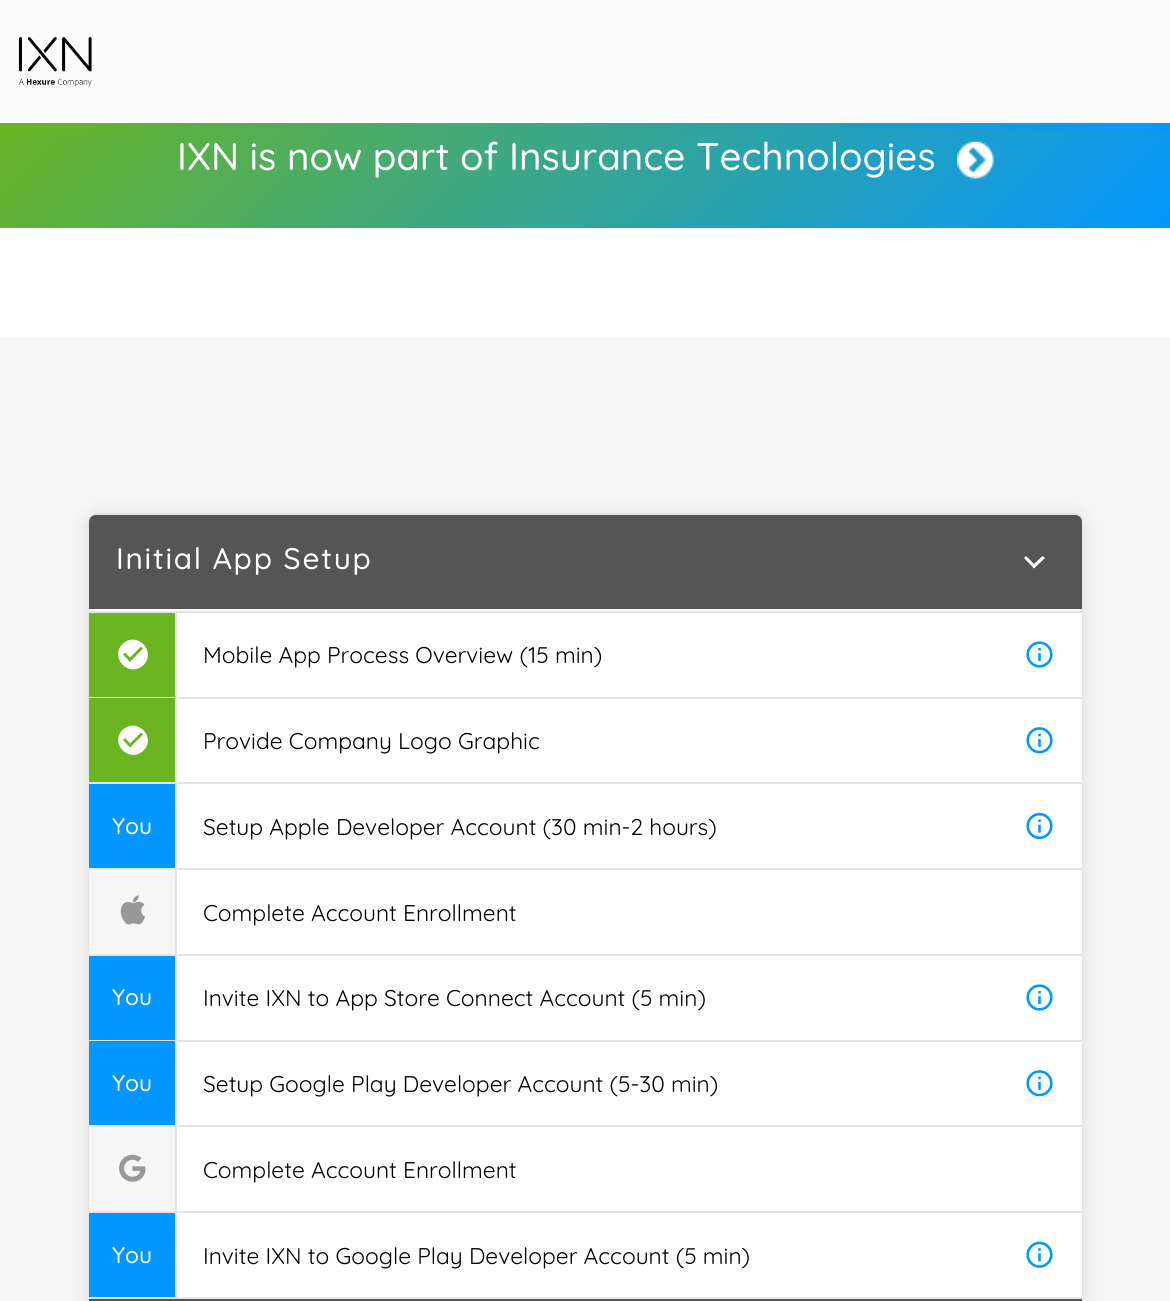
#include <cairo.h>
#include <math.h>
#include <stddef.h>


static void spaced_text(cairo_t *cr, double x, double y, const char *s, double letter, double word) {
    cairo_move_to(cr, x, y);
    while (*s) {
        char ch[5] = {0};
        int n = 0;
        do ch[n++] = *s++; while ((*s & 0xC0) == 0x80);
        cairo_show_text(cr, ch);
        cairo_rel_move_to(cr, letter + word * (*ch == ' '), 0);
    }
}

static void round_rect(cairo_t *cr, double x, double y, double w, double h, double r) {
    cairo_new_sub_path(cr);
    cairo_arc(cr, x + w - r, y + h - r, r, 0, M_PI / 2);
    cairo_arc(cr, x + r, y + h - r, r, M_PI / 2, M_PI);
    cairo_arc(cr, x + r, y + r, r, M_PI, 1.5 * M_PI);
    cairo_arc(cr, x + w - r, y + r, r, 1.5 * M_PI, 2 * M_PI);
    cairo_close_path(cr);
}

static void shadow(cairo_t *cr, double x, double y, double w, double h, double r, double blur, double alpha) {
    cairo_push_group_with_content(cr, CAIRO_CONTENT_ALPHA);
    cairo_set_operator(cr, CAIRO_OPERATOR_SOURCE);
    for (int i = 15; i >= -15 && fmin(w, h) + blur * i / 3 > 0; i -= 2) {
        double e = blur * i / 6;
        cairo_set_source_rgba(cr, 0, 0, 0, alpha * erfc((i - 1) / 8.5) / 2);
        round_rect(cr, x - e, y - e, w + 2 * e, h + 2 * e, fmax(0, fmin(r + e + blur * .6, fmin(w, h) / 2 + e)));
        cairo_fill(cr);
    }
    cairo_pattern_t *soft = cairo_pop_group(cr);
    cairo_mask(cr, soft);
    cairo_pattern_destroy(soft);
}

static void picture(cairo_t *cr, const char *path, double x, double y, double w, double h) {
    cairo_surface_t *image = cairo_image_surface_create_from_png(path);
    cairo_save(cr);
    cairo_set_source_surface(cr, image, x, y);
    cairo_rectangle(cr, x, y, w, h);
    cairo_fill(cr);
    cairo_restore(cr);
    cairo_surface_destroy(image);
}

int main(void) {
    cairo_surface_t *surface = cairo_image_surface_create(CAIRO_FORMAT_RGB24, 1170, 1301);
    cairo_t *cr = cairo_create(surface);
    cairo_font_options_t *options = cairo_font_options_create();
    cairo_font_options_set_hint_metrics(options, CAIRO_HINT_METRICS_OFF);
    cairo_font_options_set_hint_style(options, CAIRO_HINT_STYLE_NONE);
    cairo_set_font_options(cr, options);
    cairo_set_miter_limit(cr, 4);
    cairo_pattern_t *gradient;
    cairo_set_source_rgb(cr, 1, 1, 1);
    cairo_paint(cr);
    cairo_set_source_rgb(cr, 0.988, 0.988, 0.988);
    cairo_rectangle(cr, 0, 0, 1170, 123);
    cairo_fill(cr);
    picture(cr, "img1.png", 18, 37, 74, 50);
    gradient = cairo_pattern_create_linear(291, -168, 880, 420);
    cairo_pattern_add_color_stop_rgba(gradient, 0, 0.424, 0.71, 0.125, 1);
    cairo_pattern_add_color_stop_rgba(gradient, 1, 0.016, 0.592, 1, 1);
    cairo_set_source(cr, gradient);
    cairo_pattern_destroy(gradient);
    cairo_rectangle(cr, 0, 123, 1170, 7);
    cairo_fill(cr);
    gradient = cairo_pattern_create_linear(258, -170, 913, 485);
    cairo_pattern_add_color_stop_rgba(gradient, 0, 0.424, 0.71, 0.125, 1);
    cairo_pattern_add_color_stop_rgba(gradient, 1, 0.016, 0.592, 1, 1);
    cairo_set_source(cr, gradient);
    cairo_pattern_destroy(gradient);
    cairo_rectangle(cr, 0, 130, 1170, 98);
    cairo_fill(cr);
    cairo_select_font_face(cr, "Quicksand Medium", CAIRO_FONT_SLANT_NORMAL, CAIRO_FONT_WEIGHT_NORMAL);
    cairo_set_font_size(cr, 38.5);
    cairo_set_source_rgb(cr, 1, 1, 1);
    cairo_move_to(cr, 177, 170);
    cairo_show_text(cr, "IXN is now part of Insurance Technologies");
    picture(cr, "img2.png", 957, 141, 37, 38);
    cairo_set_source_rgb(cr, 0.961, 0.961, 0.961);
    cairo_rectangle(cr, 0, 338, 1170, 963);
    cairo_fill(cr);
    cairo_set_source_rgb(cr, 0, 0, 0);
    shadow(cr, 88, 516, 995, 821, 9, 9, 0.1);
    round_rect(cr, 89, 514, 993, 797, 8);
    cairo_set_source_rgb(cr, 0.898, 0.898, 0.898);
    cairo_stroke(cr);
    cairo_set_source_rgb(cr, 0.333, 0.333, 0.333);
    cairo_new_path(cr);
    cairo_move_to(cr, 96, 515);
    cairo_line_to(cr, 1075, 515);
    cairo_curve_to(cr, 1079, 515, 1082, 518, 1082, 522);
    cairo_line_to(cr, 1082, 611);
    cairo_line_to(cr, 89, 611);
    cairo_line_to(cr, 89, 522);
    cairo_curve_to(cr, 89, 518, 92, 515, 96, 515);
    cairo_close_path(cr);
    cairo_fill(cr);
    cairo_set_source_rgb(cr, 1, 1, 1);
    cairo_rectangle(cr, 89, 609, 993, 2);
    cairo_fill(cr);
    cairo_set_font_size(cr, 29.75);
    spaced_text(cr, 116, 569, "Initial App Setup", 1.75, 0);
    cairo_new_path(cr);
    cairo_move_to(cr, 1042.5, 556);
    cairo_line_to(cr, 1045, 558);
    cairo_line_to(cr, 1034, 568.5);
    cairo_line_to(cr, 1024, 558);
    cairo_line_to(cr, 1026, 556);
    cairo_line_to(cr, 1034, 564);
    cairo_close_path(cr);
    cairo_fill(cr);
    cairo_set_source_rgb(cr, 0.898, 0.898, 0.898);
    cairo_rectangle(cr, 89, 1297, 993, 2);
    cairo_fill(cr);
    cairo_set_source_rgb(cr, 1, 1, 1);
    cairo_rectangle(cr, 177, 613, 905, 84);
    cairo_fill(cr);
    cairo_set_source_rgb(cr, 0.898, 0.898, 0.898);
    cairo_rectangle(cr, 89, 611, 993, 2);
    cairo_fill(cr);
    cairo_rectangle(cr, 175, 613, 2, 84);
    cairo_fill(cr);
    cairo_set_source_rgb(cr, 0.424, 0.71, 0.125);
    cairo_rectangle(cr, 89, 613, 86, 84);
    cairo_fill(cr);
    cairo_set_source_rgb(cr, 1, 1, 1);
    cairo_new_path(cr);
    cairo_move_to(cr, 130, 662);
    cairo_line_to(cr, 143, 648.5);
    cairo_line_to(cr, 141, 646.5);
    cairo_line_to(cr, 130, 657.5);
    cairo_line_to(cr, 125, 652.5);
    cairo_line_to(cr, 123, 654.5);
    cairo_close_path(cr);
    cairo_move_to(cr, 122.5, 644);
    cairo_curve_to(cr, 136.5, 630.5, 157, 651, 143.5, 665);
    cairo_curve_to(cr, 129.5, 678.5, 109, 658, 122.5, 644);
    cairo_close_path(cr);
    cairo_fill(cr);
    cairo_select_font_face(cr, "Quicksand", CAIRO_FONT_SLANT_NORMAL, CAIRO_FONT_WEIGHT_NORMAL);
    cairo_set_font_size(cr, 22.75);
    cairo_set_source_rgb(cr, 0, 0, 0);
    cairo_move_to(cr, 203, 663);
    cairo_show_text(cr, "Mobile App Process Overview (15 min)");
    picture(cr, "img3.png", 1026, 641, 27, 27);
    cairo_set_source_rgb(cr, 1, 1, 1);
    cairo_rectangle(cr, 177, 699, 905, 83);
    cairo_fill(cr);
    cairo_set_source_rgb(cr, 0.898, 0.898, 0.898);
    cairo_rectangle(cr, 89, 697, 993, 2);
    cairo_fill(cr);
    cairo_rectangle(cr, 175, 698, 2, 84);
    cairo_fill(cr);
    cairo_set_source_rgb(cr, 0.424, 0.71, 0.125);
    cairo_rectangle(cr, 89, 698, 86, 84);
    cairo_fill(cr);
    cairo_set_source_rgb(cr, 1, 1, 1);
    cairo_new_path(cr);
    cairo_move_to(cr, 130, 747.5);
    cairo_line_to(cr, 143, 734.5);
    cairo_line_to(cr, 141, 732.5);
    cairo_line_to(cr, 130, 743.5);
    cairo_line_to(cr, 125, 738);
    cairo_line_to(cr, 123, 740);
    cairo_close_path(cr);
    cairo_move_to(cr, 122.5, 730);
    cairo_curve_to(cr, 136.5, 716.5, 157, 737, 143.5, 750.5);
    cairo_curve_to(cr, 129.5, 764, 109, 743.5, 122.5, 730);
    cairo_close_path(cr);
    cairo_fill(cr);
    cairo_set_source_rgb(cr, 0, 0, 0);
    cairo_move_to(cr, 203, 749);
    cairo_show_text(cr, "Provide Company Logo Graphic");
    picture(cr, "img4.png", 1026, 727, 27, 27);
    cairo_set_source_rgb(cr, 1, 1, 1);
    cairo_rectangle(cr, 177, 784, 905, 84);
    cairo_fill(cr);
    cairo_set_source_rgb(cr, 0.898, 0.898, 0.898);
    cairo_rectangle(cr, 89, 782, 993, 2);
    cairo_fill(cr);
    cairo_set_source_rgb(cr, 0.016, 0.592, 1);
    cairo_rectangle(cr, 89, 784, 86, 84);
    cairo_fill(cr);
    cairo_set_source_rgb(cr, 0.898, 0.898, 0.898);
    cairo_rectangle(cr, 175, 784, 2, 84);
    cairo_fill(cr);
    cairo_select_font_face(cr, "Quicksand Medium", CAIRO_FONT_SLANT_NORMAL, CAIRO_FONT_WEIGHT_NORMAL);
    cairo_set_source_rgb(cr, 1, 1, 1);
    cairo_move_to(cr, 112, 834);
    cairo_show_text(cr, "You");
    cairo_select_font_face(cr, "Quicksand", CAIRO_FONT_SLANT_NORMAL, CAIRO_FONT_WEIGHT_NORMAL);
    cairo_set_source_rgb(cr, 0, 0, 0);
    cairo_move_to(cr, 203, 835);
    cairo_show_text(cr, "Setup Apple Developer Account (30 min-2 hours)");
    picture(cr, "img5.png", 1026, 812, 27, 28);
    cairo_set_source_rgb(cr, 1, 1, 1);
    cairo_rectangle(cr, 177, 870, 905, 84);
    cairo_fill(cr);
    cairo_set_source_rgb(cr, 0.898, 0.898, 0.898);
    cairo_rectangle(cr, 89, 868, 993, 2);
    cairo_fill(cr);
    cairo_set_source_rgb(cr, 0.961, 0.961, 0.961);
    cairo_rectangle(cr, 89, 870, 86, 84);
    cairo_fill(cr);
    cairo_set_source_rgb(cr, 0.898, 0.898, 0.898);
    cairo_rectangle(cr, 175, 870, 2, 84);
    cairo_fill(cr);
    picture(cr, "img6.png", 120, 895, 26, 30);
    cairo_set_source_rgb(cr, 0, 0, 0);
    cairo_move_to(cr, 203, 921);
    cairo_show_text(cr, "Complete Account Enrollment");
    cairo_set_source_rgb(cr, 1, 1, 1);
    cairo_rectangle(cr, 177, 956, 905, 84);
    cairo_fill(cr);
    cairo_set_source_rgb(cr, 0.898, 0.898, 0.898);
    cairo_rectangle(cr, 89, 954, 993, 2);
    cairo_fill(cr);
    cairo_set_source_rgb(cr, 0.016, 0.592, 1);
    cairo_rectangle(cr, 89, 956, 86, 84);
    cairo_fill(cr);
    cairo_set_source_rgb(cr, 0.898, 0.898, 0.898);
    cairo_rectangle(cr, 175, 956, 2, 84);
    cairo_fill(cr);
    cairo_select_font_face(cr, "Quicksand Medium", CAIRO_FONT_SLANT_NORMAL, CAIRO_FONT_WEIGHT_NORMAL);
    cairo_set_source_rgb(cr, 1, 1, 1);
    cairo_move_to(cr, 112, 1005);
    cairo_show_text(cr, "You");
    cairo_select_font_face(cr, "Quicksand", CAIRO_FONT_SLANT_NORMAL, CAIRO_FONT_WEIGHT_NORMAL);
    cairo_set_source_rgb(cr, 0, 0, 0);
    cairo_move_to(cr, 203, 1006);
    cairo_show_text(cr, "Invite IXN to App Store Connect Account (5 min)");
    picture(cr, "img3.png", 1026, 984, 27, 27);
    cairo_set_source_rgb(cr, 1, 1, 1);
    cairo_rectangle(cr, 177, 1042, 905, 83);
    cairo_fill(cr);
    cairo_set_source_rgb(cr, 0.898, 0.898, 0.898);
    cairo_rectangle(cr, 89, 1040, 993, 2);
    cairo_fill(cr);
    cairo_set_source_rgb(cr, 0.016, 0.592, 1);
    cairo_rectangle(cr, 89, 1041, 86, 84);
    cairo_fill(cr);
    cairo_set_source_rgb(cr, 0.898, 0.898, 0.898);
    cairo_rectangle(cr, 175, 1041, 2, 84);
    cairo_fill(cr);
    cairo_select_font_face(cr, "Quicksand Medium", CAIRO_FONT_SLANT_NORMAL, CAIRO_FONT_WEIGHT_NORMAL);
    cairo_set_source_rgb(cr, 1, 1, 1);
    cairo_move_to(cr, 112, 1091);
    cairo_show_text(cr, "You");
    cairo_select_font_face(cr, "Quicksand", CAIRO_FONT_SLANT_NORMAL, CAIRO_FONT_WEIGHT_NORMAL);
    cairo_set_source_rgb(cr, 0, 0, 0);
    cairo_move_to(cr, 203, 1092);
    cairo_show_text(cr, "Setup Google Play Developer Account (5-30 min)");
    picture(cr, "img4.png", 1026, 1070, 27, 27);
    cairo_set_source_rgb(cr, 1, 1, 1);
    cairo_rectangle(cr, 177, 1127, 905, 84);
    cairo_fill(cr);
    cairo_set_source_rgb(cr, 0.898, 0.898, 0.898);
    cairo_rectangle(cr, 89, 1125, 993, 2);
    cairo_fill(cr);
    cairo_set_source_rgb(cr, 0.961, 0.961, 0.961);
    cairo_rectangle(cr, 89, 1127, 86, 84);
    cairo_fill(cr);
    cairo_set_source_rgb(cr, 0.898, 0.898, 0.898);
    cairo_rectangle(cr, 175, 1127, 2, 84);
    cairo_fill(cr);
    picture(cr, "img7.png", 119, 1154, 27, 28);
    cairo_set_source_rgb(cr, 0, 0, 0);
    cairo_move_to(cr, 203, 1178);
    cairo_show_text(cr, "Complete Account Enrollment");
    cairo_set_source_rgb(cr, 1, 1, 1);
    cairo_rectangle(cr, 177, 1213, 905, 84);
    cairo_fill(cr);
    cairo_set_source_rgb(cr, 0.898, 0.898, 0.898);
    cairo_rectangle(cr, 89, 1211, 993, 2);
    cairo_fill(cr);
    cairo_set_source_rgb(cr, 0.016, 0.592, 1);
    cairo_rectangle(cr, 89, 1213, 86, 84);
    cairo_fill(cr);
    cairo_set_source_rgb(cr, 0.898, 0.898, 0.898);
    cairo_rectangle(cr, 175, 1213, 2, 84);
    cairo_fill(cr);
    cairo_select_font_face(cr, "Quicksand Medium", CAIRO_FONT_SLANT_NORMAL, CAIRO_FONT_WEIGHT_NORMAL);
    cairo_set_source_rgb(cr, 1, 1, 1);
    cairo_move_to(cr, 112, 1263);
    cairo_show_text(cr, "You");
    cairo_select_font_face(cr, "Quicksand", CAIRO_FONT_SLANT_NORMAL, CAIRO_FONT_WEIGHT_NORMAL);
    cairo_set_source_rgb(cr, 0, 0, 0);
    cairo_move_to(cr, 203, 1264);
    cairo_show_text(cr, "Invite IXN to Google Play Developer Account (5 min)");
    picture(cr, "img8.png", 1026, 1241, 27, 27);
    cairo_set_source_rgb(cr, 0.333, 0.333, 0.333);
    cairo_rectangle(cr, 89, 1299, 993, 2);
    cairo_fill(cr);
    cairo_surface_write_to_png(surface, "page.png");
    cairo_font_options_destroy(options);
    cairo_destroy(cr);
    cairo_surface_destroy(surface);
    return 0;
}
